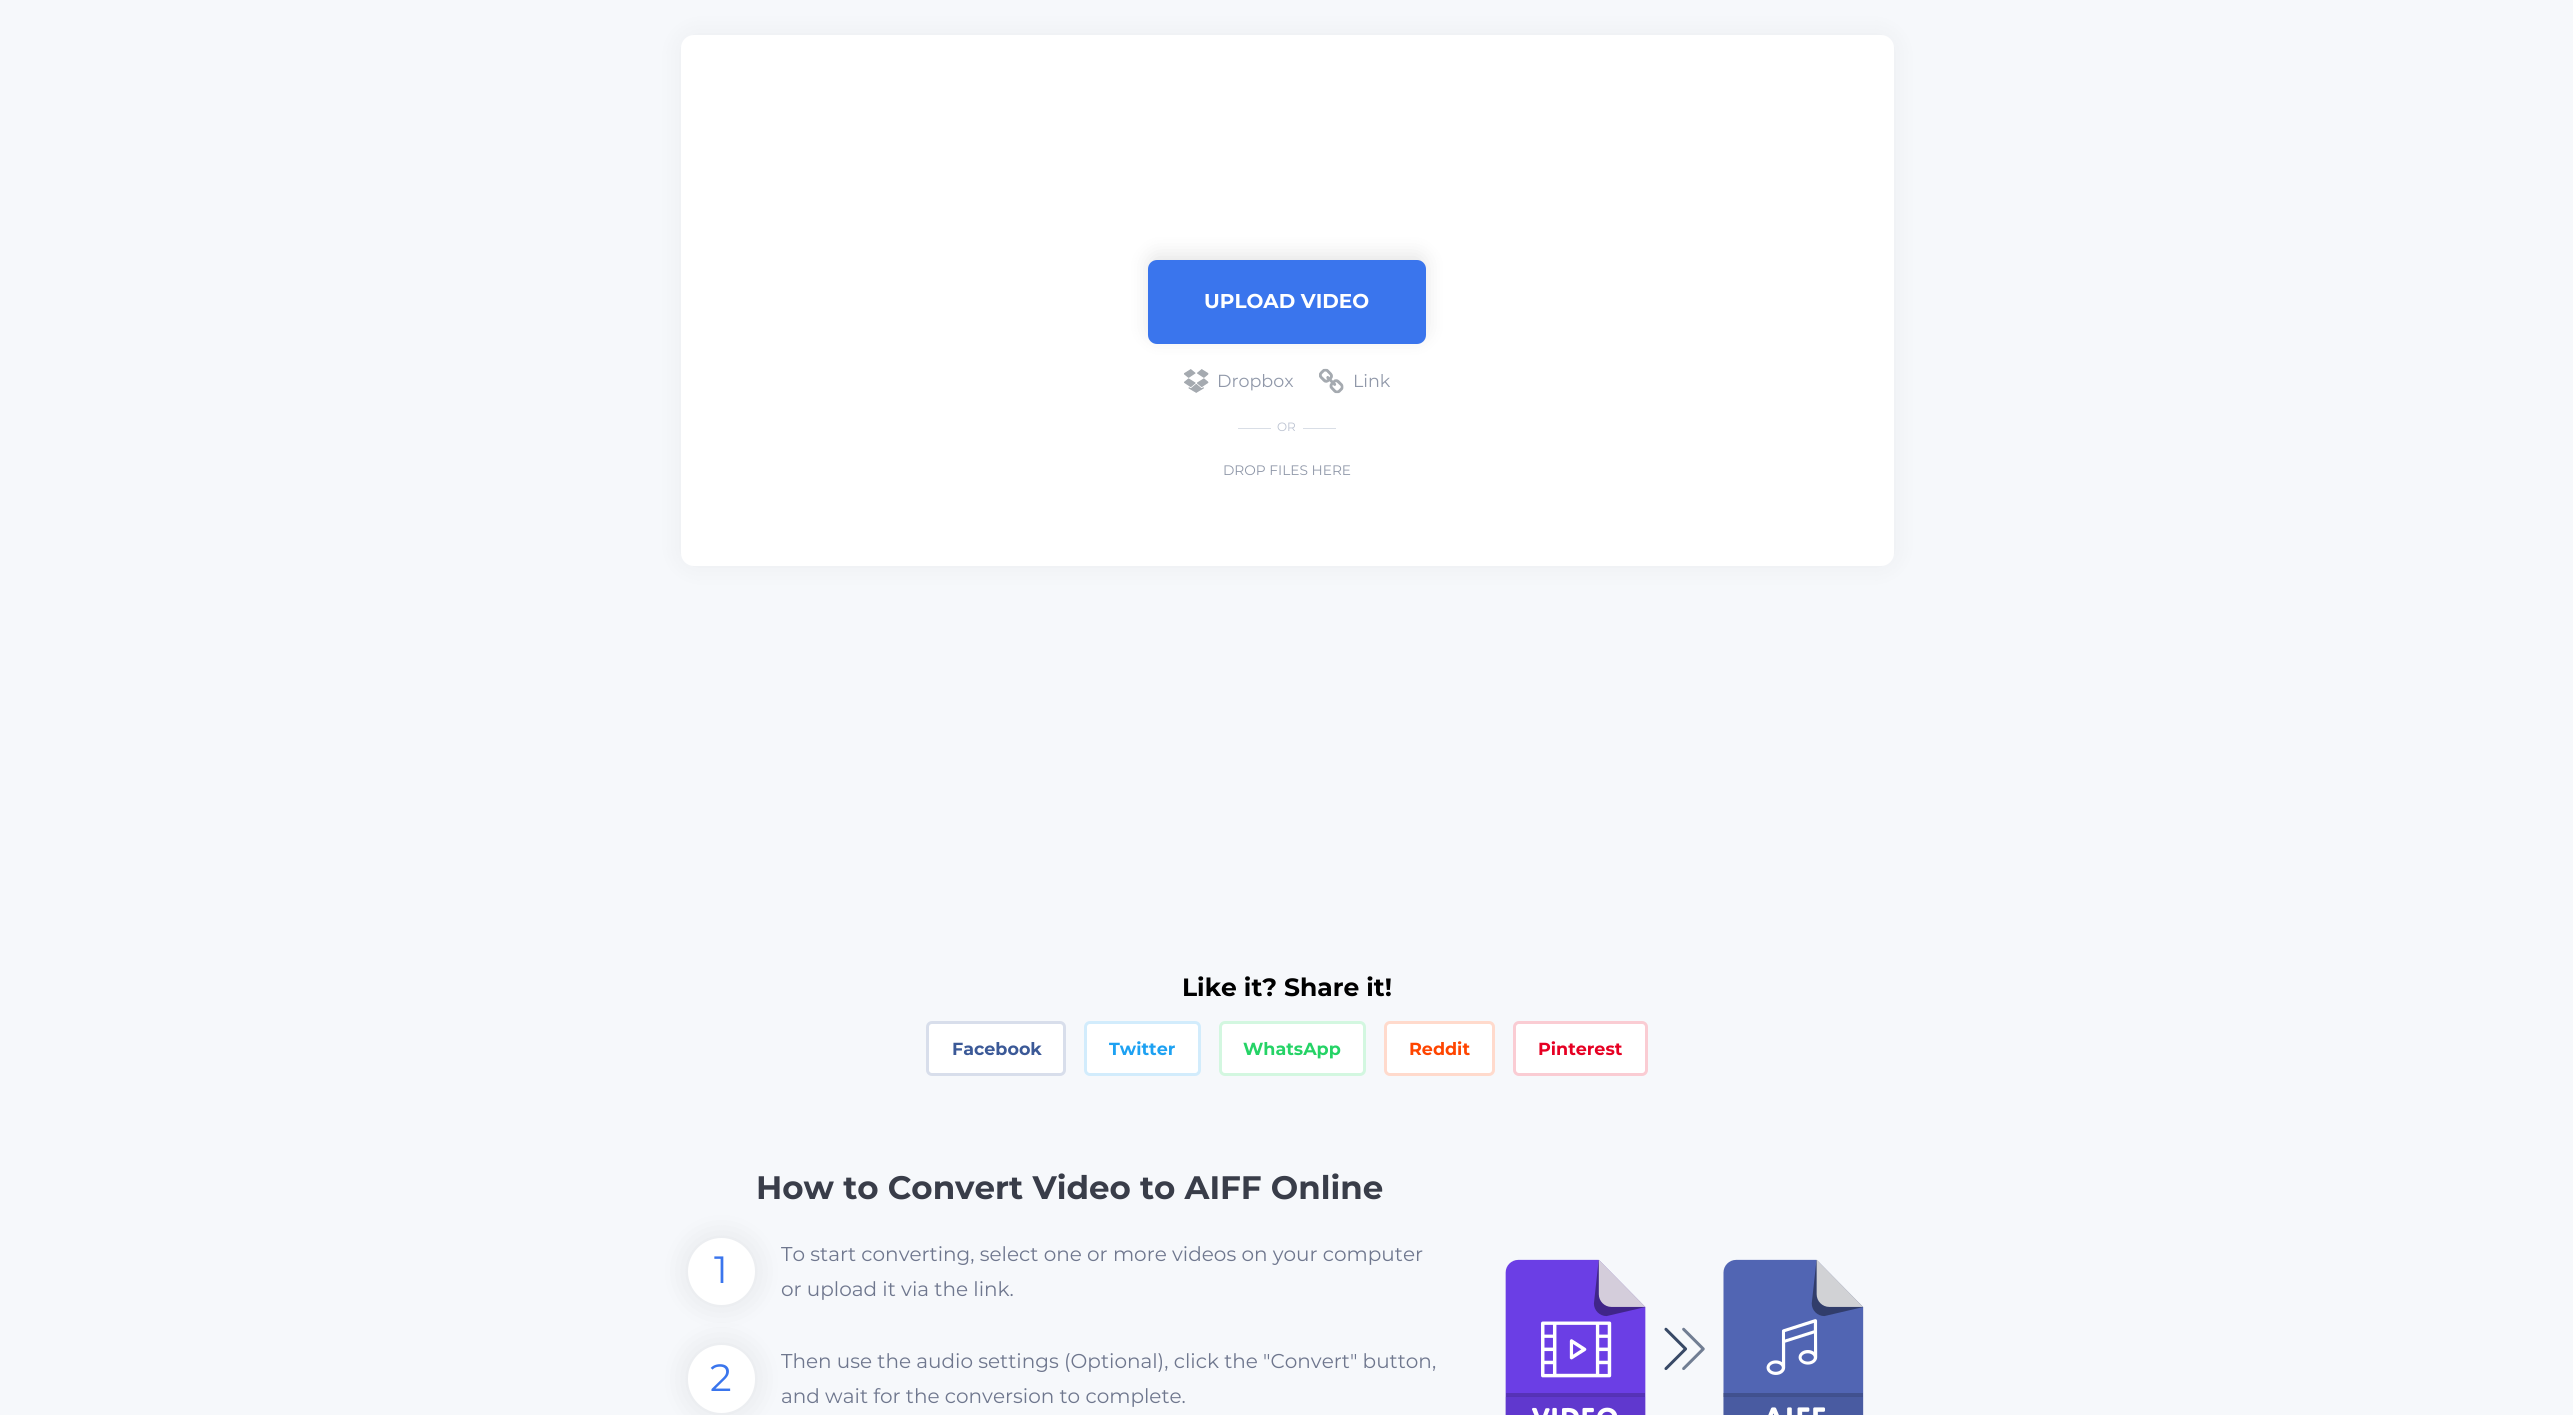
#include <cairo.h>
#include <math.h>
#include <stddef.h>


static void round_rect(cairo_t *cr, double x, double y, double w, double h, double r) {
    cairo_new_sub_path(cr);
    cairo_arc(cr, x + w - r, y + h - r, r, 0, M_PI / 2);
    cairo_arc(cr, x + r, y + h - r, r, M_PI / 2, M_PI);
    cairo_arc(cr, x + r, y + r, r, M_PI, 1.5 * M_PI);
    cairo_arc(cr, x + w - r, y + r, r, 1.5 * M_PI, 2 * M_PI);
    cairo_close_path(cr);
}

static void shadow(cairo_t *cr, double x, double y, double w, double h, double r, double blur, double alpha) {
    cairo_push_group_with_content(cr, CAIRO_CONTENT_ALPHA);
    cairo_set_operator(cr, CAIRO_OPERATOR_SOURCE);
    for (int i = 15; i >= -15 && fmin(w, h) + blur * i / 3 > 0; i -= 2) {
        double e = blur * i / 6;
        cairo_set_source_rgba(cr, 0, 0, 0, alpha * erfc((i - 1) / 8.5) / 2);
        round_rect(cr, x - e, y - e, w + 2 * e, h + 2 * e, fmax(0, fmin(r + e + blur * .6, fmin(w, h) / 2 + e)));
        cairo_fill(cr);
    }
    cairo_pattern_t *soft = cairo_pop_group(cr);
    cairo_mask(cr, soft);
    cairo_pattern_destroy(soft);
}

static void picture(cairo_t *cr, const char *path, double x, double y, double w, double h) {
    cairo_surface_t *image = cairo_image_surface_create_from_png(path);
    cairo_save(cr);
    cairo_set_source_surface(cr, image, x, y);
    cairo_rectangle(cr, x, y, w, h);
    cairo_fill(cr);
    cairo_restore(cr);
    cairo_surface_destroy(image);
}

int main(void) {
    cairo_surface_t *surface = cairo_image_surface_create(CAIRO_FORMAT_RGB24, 2573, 1415);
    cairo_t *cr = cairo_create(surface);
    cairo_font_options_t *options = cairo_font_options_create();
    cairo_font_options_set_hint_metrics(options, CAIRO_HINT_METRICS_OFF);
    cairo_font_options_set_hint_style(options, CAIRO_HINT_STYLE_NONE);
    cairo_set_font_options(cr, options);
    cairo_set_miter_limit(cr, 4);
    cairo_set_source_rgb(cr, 0.961, 0.969, 0.984);
    cairo_paint(cr);
    cairo_set_source_rgb(cr, 0, 0, 0);
    shadow(cr, 681, 35, 1213, 531, 13, 12.5, 0.05);
    cairo_set_source_rgb(cr, 1, 1, 1);
    round_rect(cr, 681, 35, 1213, 531, 13);
    cairo_fill(cr);
    cairo_set_source_rgb(cr, 0, 0, 0);
    shadow(cr, 1148, 254, 278, 84, 9, 9.5, 0.1);
    cairo_set_source_rgb(cr, 0.227, 0.459, 0.929);
    round_rect(cr, 1148, 260, 278, 84, 9);
    cairo_fill(cr);
    cairo_select_font_face(cr, "Montserrat", CAIRO_FONT_SLANT_NORMAL, CAIRO_FONT_WEIGHT_BOLD);
    cairo_set_font_size(cr, 20);
    cairo_set_source_rgb(cr, 1, 1, 1);
    cairo_move_to(cr, 1204, 308);
    cairo_show_text(cr, "UPLOAD VIDEO");
    picture(cr, "img1.png", 1184, 369, 25, 24);
    cairo_select_font_face(cr, "Montserrat", CAIRO_FONT_SLANT_NORMAL, CAIRO_FONT_WEIGHT_NORMAL);
    cairo_set_font_size(cr, 17.5);
    cairo_set_source_rgb(cr, 0.565, 0.596, 0.663);
    cairo_move_to(cr, 1217, 387);
    cairo_show_text(cr, "Dropbox");
    picture(cr, "img2.png", 1319, 368, 25, 26);
    cairo_move_to(cr, 1353, 387);
    cairo_show_text(cr, "Link");
    cairo_set_source_rgb(cr, 0.851, 0.871, 0.902);
    cairo_rectangle(cr, 1238, 428, 33, 1);
    cairo_fill(cr);
    cairo_set_font_size(cr, 12);
    cairo_set_source_rgb(cr, 0.729, 0.757, 0.816);
    cairo_move_to(cr, 1277, 431);
    cairo_show_text(cr, "OR");
    cairo_set_source_rgb(cr, 0.851, 0.871, 0.902);
    cairo_rectangle(cr, 1303, 428, 33, 1);
    cairo_fill(cr);
    cairo_set_font_size(cr, 13.75);
    cairo_set_source_rgb(cr, 0.565, 0.596, 0.663);
    cairo_move_to(cr, 1223, 475);
    cairo_show_text(cr, "DROP FILES HERE");
    cairo_select_font_face(cr, "Montserrat", CAIRO_FONT_SLANT_NORMAL, CAIRO_FONT_WEIGHT_BOLD);
    cairo_set_font_size(cr, 25);
    cairo_set_source_rgb(cr, 0, 0, 0);
    cairo_move_to(cr, 1182, 996);
    cairo_show_text(cr, "Like it? Share it!");
    cairo_set_source_rgb(cr, 1, 1, 1);
    round_rect(cr, 927.5, 1022.5, 137, 52, 4.5);
    cairo_fill_preserve(cr);
    cairo_set_source_rgb(cr, 0.847, 0.871, 0.918);
    cairo_set_line_width(cr, 3);
    cairo_stroke(cr);
    cairo_set_font_size(cr, 17.5);
    cairo_set_source_rgb(cr, 0.231, 0.349, 0.592);
    cairo_move_to(cr, 952, 1055);
    cairo_show_text(cr, "Facebook");
    cairo_set_source_rgb(cr, 1, 1, 1);
    round_rect(cr, 1085.5, 1022.5, 114, 52, 4.5);
    cairo_fill_preserve(cr);
    cairo_set_source_rgb(cr, 0.824, 0.925, 0.988);
    cairo_stroke(cr);
    cairo_set_source_rgb(cr, 0.114, 0.631, 0.949);
    cairo_move_to(cr, 1109, 1055);
    cairo_show_text(cr, "Twitter");
    cairo_set_source_rgb(cr, 1, 1, 1);
    round_rect(cr, 1220.5, 1022.5, 144, 52, 4.5);
    cairo_fill_preserve(cr);
    cairo_set_source_rgb(cr, 0.827, 0.965, 0.878);
    cairo_stroke(cr);
    cairo_set_source_rgb(cr, 0.145, 0.827, 0.4);
    cairo_move_to(cr, 1243, 1055);
    cairo_show_text(cr, "WhatsApp");
    cairo_set_source_rgb(cr, 1, 1, 1);
    round_rect(cr, 1385.5, 1022.5, 108, 52, 4.5);
    cairo_fill_preserve(cr);
    cairo_set_source_rgb(cr, 1, 0.855, 0.8);
    cairo_stroke(cr);
    cairo_set_source_rgb(cr, 1, 0.271, 0);
    cairo_move_to(cr, 1409, 1055);
    cairo_show_text(cr, "Reddit");
    cairo_set_source_rgb(cr, 1, 1, 1);
    round_rect(cr, 1514.5, 1022.5, 132, 52, 4.5);
    cairo_fill_preserve(cr);
    cairo_set_source_rgb(cr, 0.98, 0.8, 0.827);
    cairo_stroke(cr);
    cairo_set_source_rgb(cr, 0.902, 0, 0.137);
    cairo_move_to(cr, 1538, 1055);
    cairo_show_text(cr, "Pinterest");
    cairo_set_font_size(cr, 32.5);
    cairo_set_source_rgb(cr, 0.224, 0.239, 0.286);
    cairo_move_to(cr, 756, 1199);
    cairo_show_text(cr, "How to Convert Video to AIFF Online");
    cairo_set_source_rgb(cr, 0, 0, 0);
    shadow(cr, 688, 1238, 67, 67, 33.5, 15.5, 0.08);
    cairo_set_source_rgb(cr, 1, 1, 1);
    cairo_arc(cr, 721.5, 1271.5, 33.5, 0, 2 * M_PI);
    cairo_fill(cr);
    cairo_select_font_face(cr, "Montserrat", CAIRO_FONT_SLANT_NORMAL, CAIRO_FONT_WEIGHT_NORMAL);
    cairo_set_font_size(cr, 38);
    cairo_set_source_rgb(cr, 0.227, 0.459, 0.929);
    cairo_move_to(cr, 714, 1283);
    cairo_show_text(cr, "1");
    cairo_set_font_size(cr, 20);
    cairo_set_source_rgb(cr, 0.435, 0.467, 0.557);
    cairo_move_to(cr, 781, 1261);
    cairo_show_text(cr, "To start converting, select one or more videos on your computer");
    cairo_move_to(cr, 781, 1296);
    cairo_show_text(cr, "or upload it via the link.");
    cairo_set_source_rgb(cr, 0, 0, 0);
    shadow(cr, 688, 1345, 67, 68, 33.5, 15.5, 0.08);
    cairo_set_source_rgb(cr, 1, 1, 1);
    round_rect(cr, 688, 1345, 67, 68, 33.5);
    cairo_fill(cr);
    cairo_set_font_size(cr, 38);
    cairo_set_source_rgb(cr, 0.227, 0.459, 0.929);
    cairo_move_to(cr, 710, 1391);
    cairo_show_text(cr, "2");
    cairo_set_font_size(cr, 20);
    cairo_set_source_rgb(cr, 0.435, 0.467, 0.557);
    cairo_move_to(cr, 781, 1368);
    cairo_show_text(cr, "Then use the audio settings (Optional), click the \"Convert\" button,");
    cairo_move_to(cr, 781, 1403);
    cairo_show_text(cr, "and wait for the conversion to complete.");
    picture(cr, "img3.png", 1505, 1259, 359, 156);
    cairo_surface_write_to_png(surface, "page.png");
    cairo_font_options_destroy(options);
    cairo_destroy(cr);
    cairo_surface_destroy(surface);
    return 0;
}
